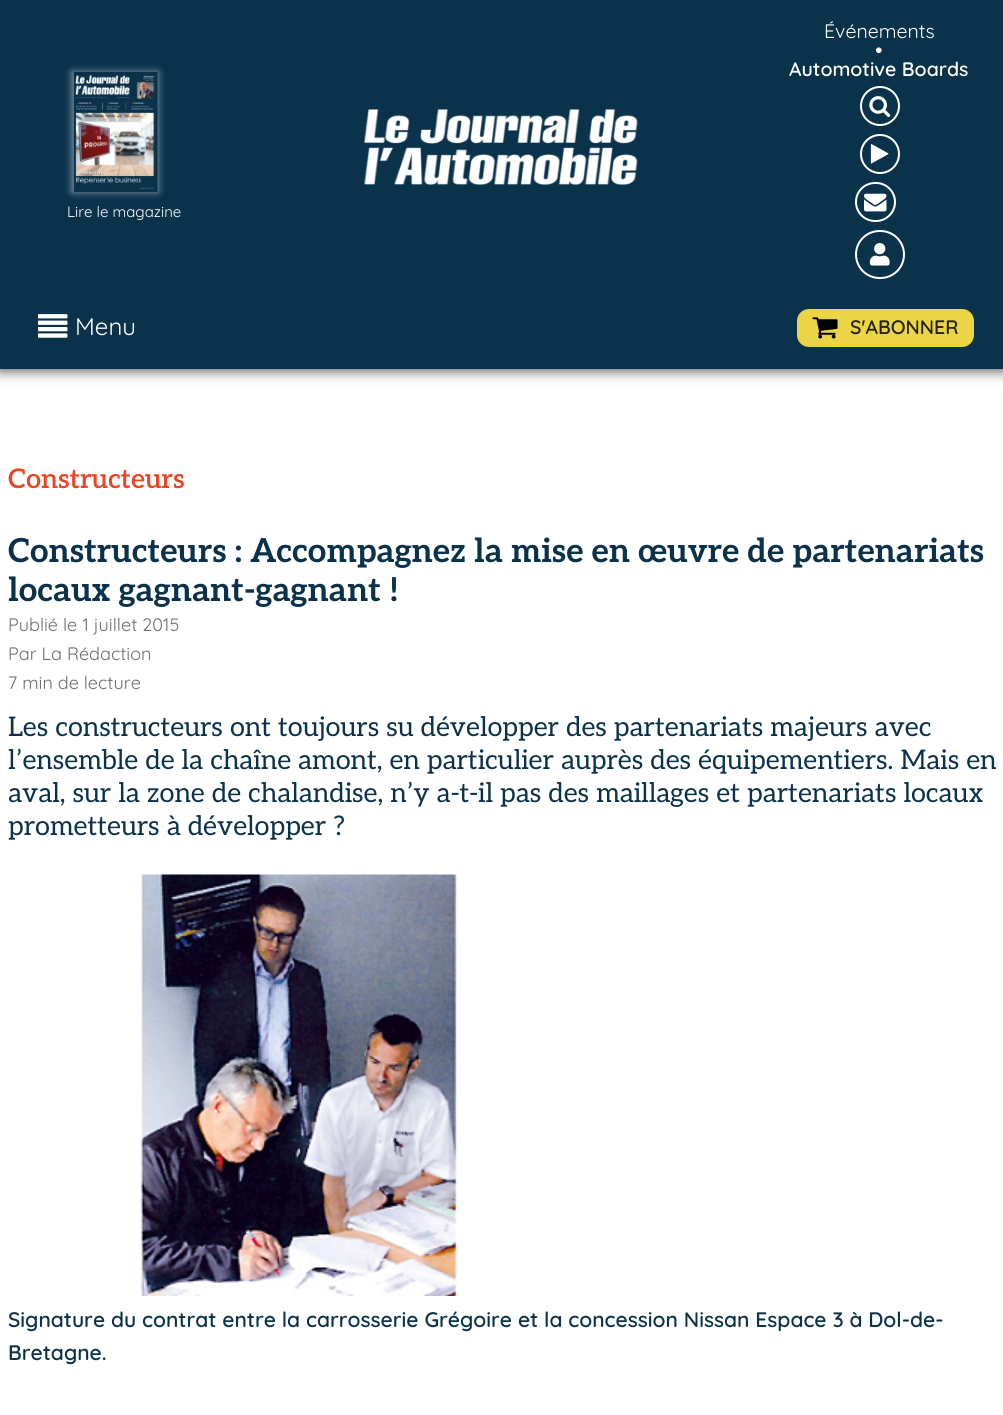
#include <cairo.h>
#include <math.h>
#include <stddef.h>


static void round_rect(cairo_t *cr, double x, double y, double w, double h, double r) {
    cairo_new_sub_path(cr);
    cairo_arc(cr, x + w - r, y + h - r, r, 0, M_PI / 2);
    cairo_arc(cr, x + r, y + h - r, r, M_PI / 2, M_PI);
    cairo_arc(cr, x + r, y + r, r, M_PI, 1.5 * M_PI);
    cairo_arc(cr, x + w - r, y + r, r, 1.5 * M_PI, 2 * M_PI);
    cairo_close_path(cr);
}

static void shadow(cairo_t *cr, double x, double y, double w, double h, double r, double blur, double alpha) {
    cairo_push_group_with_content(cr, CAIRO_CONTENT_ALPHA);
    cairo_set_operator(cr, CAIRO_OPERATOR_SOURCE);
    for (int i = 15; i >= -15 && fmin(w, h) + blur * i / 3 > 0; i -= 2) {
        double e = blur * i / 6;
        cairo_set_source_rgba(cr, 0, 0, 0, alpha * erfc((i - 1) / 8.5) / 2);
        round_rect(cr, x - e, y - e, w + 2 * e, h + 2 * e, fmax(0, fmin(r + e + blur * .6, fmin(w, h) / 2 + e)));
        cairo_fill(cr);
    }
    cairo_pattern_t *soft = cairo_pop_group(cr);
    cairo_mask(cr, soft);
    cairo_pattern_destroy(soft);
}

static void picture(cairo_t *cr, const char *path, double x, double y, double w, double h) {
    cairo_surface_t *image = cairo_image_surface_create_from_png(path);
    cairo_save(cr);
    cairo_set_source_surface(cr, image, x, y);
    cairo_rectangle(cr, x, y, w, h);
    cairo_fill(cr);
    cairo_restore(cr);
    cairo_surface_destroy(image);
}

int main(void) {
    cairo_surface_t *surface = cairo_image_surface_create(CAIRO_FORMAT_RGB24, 1003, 1415);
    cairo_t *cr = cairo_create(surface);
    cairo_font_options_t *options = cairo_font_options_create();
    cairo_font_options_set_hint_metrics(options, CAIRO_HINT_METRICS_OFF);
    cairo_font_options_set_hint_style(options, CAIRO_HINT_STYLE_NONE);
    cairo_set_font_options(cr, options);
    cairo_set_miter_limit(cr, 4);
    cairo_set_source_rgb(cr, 1, 1, 1);
    cairo_paint(cr);
    cairo_set_source_rgb(cr, 0, 0, 0);
    shadow(cr, 0, 0, 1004, 369, 0, 7.5, 0.84);
    cairo_set_source_rgb(cr, 0.043, 0.196, 0.294);
    cairo_rectangle(cr, 0, 0, 1003, 369);
    cairo_fill(cr);
    cairo_select_font_face(cr, "Quicksand", CAIRO_FONT_SLANT_NORMAL, CAIRO_FONT_WEIGHT_NORMAL);
    cairo_set_font_size(cr, 19.5);
    cairo_set_source_rgb(cr, 1, 1, 1);
    cairo_move_to(cr, 824, 38);
    cairo_show_text(cr, "Événements");
    cairo_set_font_size(cr, 22);
    cairo_set_source_rgb(cr, 0.976, 0.976, 0.98);
    cairo_move_to(cr, 875, 58);
    cairo_show_text(cr, "•");
    cairo_select_font_face(cr, "Quicksand SemiBold", CAIRO_FONT_SLANT_NORMAL, CAIRO_FONT_WEIGHT_NORMAL);
    cairo_set_font_size(cr, 19.5);
    cairo_set_source_rgb(cr, 1, 1, 1);
    cairo_move_to(cr, 789, 76);
    cairo_show_text(cr, "Automotive Boards");
    cairo_new_path(cr);
    cairo_arc(cr, 880, 106, 19, 0, 2 * M_PI);
    cairo_stroke(cr);
    picture(cr, "img1.png", 869, 96, 22, 21);
    cairo_arc(cr, 880, 154, 19, 0, 2 * M_PI);
    cairo_stroke(cr);
    picture(cr, "img2.png", 870, 144, 19, 20);
    round_rect(cr, 856, 183, 39, 38, 19);
    cairo_stroke(cr);
    picture(cr, "img3.png", 864, 193, 23, 19);
    round_rect(cr, 856, 231, 48, 47, 23.5);
    cairo_stroke(cr);
    picture(cr, "img4.png", 869, 243, 21, 23);
    picture(cr, "img5.png", 364, 109, 274, 76);
    cairo_set_source_rgb(cr, 1, 1, 1);
    shadow(cr, 72, 72, 86, 120, 0, 4, 0.5);
    picture(cr, "img6.png", 74, 72, 84, 120);
    cairo_select_font_face(cr, "Quicksand", CAIRO_FONT_SLANT_NORMAL, CAIRO_FONT_WEIGHT_NORMAL);
    cairo_set_font_size(cr, 15);
    cairo_set_source_rgb(cr, 1, 1, 1);
    cairo_move_to(cr, 67, 217);
    cairo_show_text(cr, "Lire le magazine");
    picture(cr, "img7.png", 38, 314, 30, 24);
    cairo_set_font_size(cr, 24);
    cairo_move_to(cr, 75, 335);
    cairo_show_text(cr, "Menu");
    cairo_set_source_rgb(cr, 0.918, 0.835, 0.275);
    round_rect(cr, 797, 309, 177, 38, 12);
    cairo_fill(cr);
    picture(cr, "img8.png", 812, 317, 26, 22);
    cairo_select_font_face(cr, "Quicksand SemiBold", CAIRO_FONT_SLANT_NORMAL, CAIRO_FONT_WEIGHT_NORMAL);
    cairo_set_font_size(cr, 19.5);
    cairo_set_source_rgb(cr, 0.145, 0.133, 0.043);
    cairo_move_to(cr, 850, 334);
    cairo_show_text(cr, "S'ABONNER");
    cairo_select_font_face(cr, "Aleo SemiBold", CAIRO_FONT_SLANT_NORMAL, CAIRO_FONT_WEIGHT_NORMAL);
    cairo_set_font_size(cr, 27);
    cairo_set_source_rgb(cr, 0.91, 0.275, 0.145);
    cairo_move_to(cr, 8, 488);
    cairo_show_text(cr, "Constructeurs");
    cairo_select_font_face(cr, "Aleo", CAIRO_FONT_SLANT_NORMAL, CAIRO_FONT_WEIGHT_BOLD);
    cairo_set_font_size(cr, 33);
    cairo_set_source_rgb(cr, 0.043, 0.196, 0.294);
    cairo_move_to(cr, 8, 562);
    cairo_show_text(cr, "Constructeurs : Accompagnez la mise en œuvre de partenariats");
    cairo_move_to(cr, 8, 601);
    cairo_show_text(cr, "locaux gagnant-gagnant !");
    cairo_select_font_face(cr, "Quicksand", CAIRO_FONT_SLANT_NORMAL, CAIRO_FONT_WEIGHT_NORMAL);
    cairo_set_font_size(cr, 18);
    cairo_set_source_rgb(cr, 0.427, 0.427, 0.427);
    cairo_move_to(cr, 8, 631);
    cairo_show_text(cr, "Publié le 1 juillet 2015");
    cairo_move_to(cr, 8, 660);
    cairo_show_text(cr, "Par La Rédaction");
    cairo_move_to(cr, 8, 689);
    cairo_show_text(cr, "7 min de lecture");
    cairo_select_font_face(cr, "Aleo", CAIRO_FONT_SLANT_NORMAL, CAIRO_FONT_WEIGHT_NORMAL);
    cairo_set_font_size(cr, 27);
    cairo_set_source_rgb(cr, 0.043, 0.196, 0.294);
    cairo_move_to(cr, 8, 736);
    cairo_show_text(cr, "Les constructeurs ont toujours su développer des partenariats majeurs avec");
    cairo_move_to(cr, 8, 769);
    cairo_show_text(cr, "l’ensemble de la chaîne amont, en particulier auprès des équipementiers. Mais en");
    cairo_move_to(cr, 8, 802);
    cairo_show_text(cr, "aval, sur la zone de chalandise, n’y a-t-il pas des maillages et partenariats locaux");
    cairo_move_to(cr, 8, 835);
    cairo_show_text(cr, "prometteurs à développer ?");
    picture(cr, "img9.png", 140, 874, 317, 422);
    cairo_select_font_face(cr, "Quicksand SemiBold", CAIRO_FONT_SLANT_NORMAL, CAIRO_FONT_WEIGHT_NORMAL);
    cairo_set_font_size(cr, 21);
    cairo_move_to(cr, 8, 1327);
    cairo_show_text(cr, "Signature du contrat entre la carrosserie Grégoire et la concession Nissan Espace 3 à Dol-de-");
    cairo_move_to(cr, 8, 1360);
    cairo_show_text(cr, "Bretagne.");
    cairo_surface_write_to_png(surface, "page.png");
    cairo_font_options_destroy(options);
    cairo_destroy(cr);
    cairo_surface_destroy(surface);
    return 0;
}
